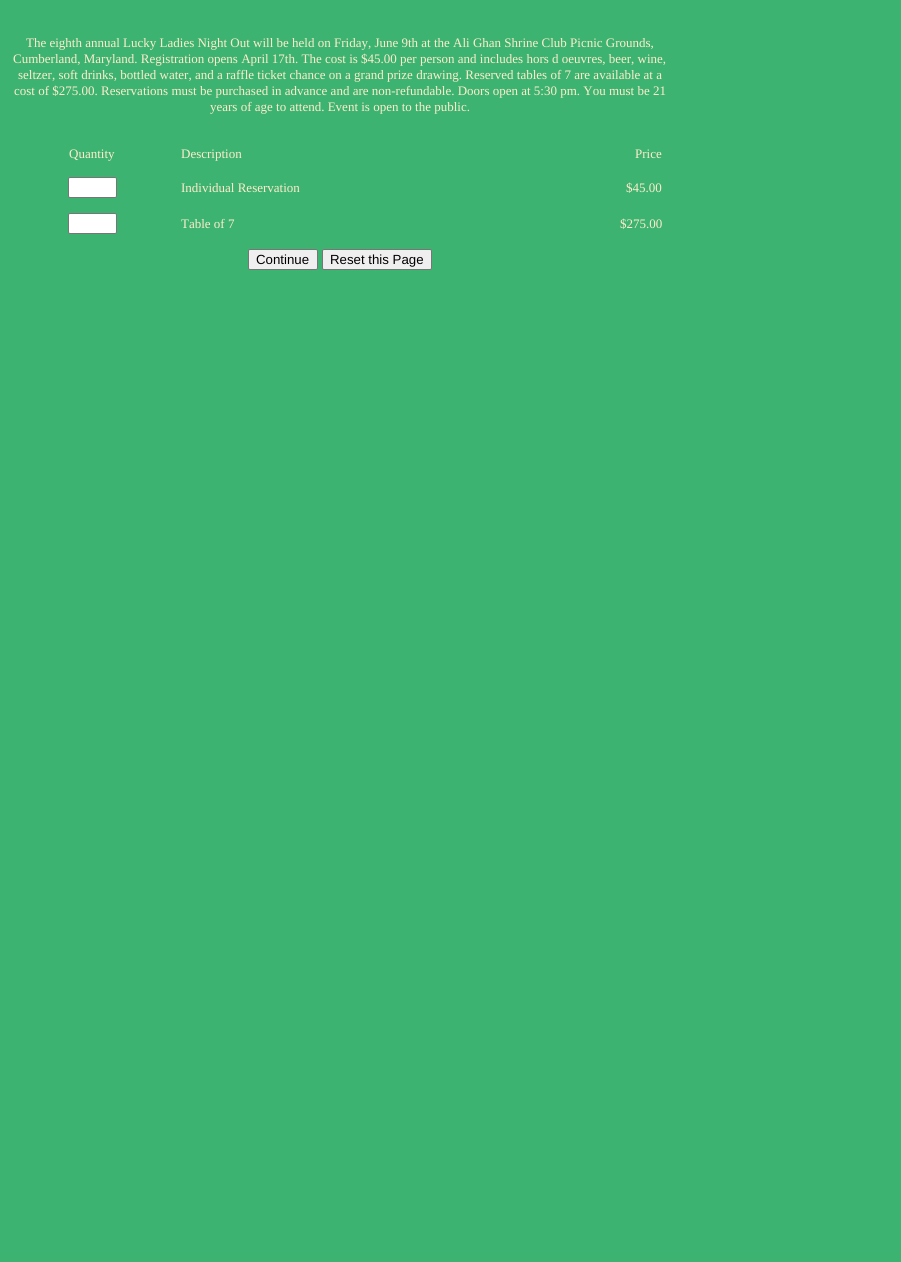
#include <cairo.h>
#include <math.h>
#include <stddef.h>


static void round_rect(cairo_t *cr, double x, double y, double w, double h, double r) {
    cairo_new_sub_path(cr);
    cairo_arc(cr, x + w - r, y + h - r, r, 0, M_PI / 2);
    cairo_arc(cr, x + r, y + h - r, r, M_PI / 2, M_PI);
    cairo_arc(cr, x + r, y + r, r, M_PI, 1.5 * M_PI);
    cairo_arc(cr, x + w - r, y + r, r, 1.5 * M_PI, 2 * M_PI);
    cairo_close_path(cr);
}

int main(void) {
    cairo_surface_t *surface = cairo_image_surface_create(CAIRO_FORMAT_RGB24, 901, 1262);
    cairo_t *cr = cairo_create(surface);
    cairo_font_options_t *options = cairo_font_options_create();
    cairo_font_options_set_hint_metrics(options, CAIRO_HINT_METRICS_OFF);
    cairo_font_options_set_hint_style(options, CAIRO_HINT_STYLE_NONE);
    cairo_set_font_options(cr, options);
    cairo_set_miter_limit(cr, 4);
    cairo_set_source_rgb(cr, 0.235, 0.702, 0.443);
    cairo_paint(cr);
    cairo_select_font_face(cr, "Liberation Serif", CAIRO_FONT_SLANT_NORMAL, CAIRO_FONT_WEIGHT_NORMAL);
    cairo_set_font_size(cr, 13);
    cairo_set_source_rgb(cr, 1, 0.922, 0.804);
    cairo_move_to(cr, 26, 47);
    cairo_show_text(cr, "The eighth annual Lucky Ladies Night Out will be held on Friday, June 9th at the Ali Ghan Shrine Club Picnic Grounds,");
    cairo_move_to(cr, 13, 63);
    cairo_show_text(cr, "Cumberland, Maryland. Registration opens April 17th. The cost is $45.00 per person and includes hors d oeuvres, beer, wine,");
    cairo_move_to(cr, 18, 79);
    cairo_show_text(cr, "seltzer, soft drinks, bottled water, and a raffle ticket chance on a grand prize drawing. Reserved tables of 7 are available at a");
    cairo_move_to(cr, 14, 95);
    cairo_show_text(cr, "cost of $275.00. Reservations must be purchased in advance and are non-refundable. Doors open at 5:30 pm. You must be 21");
    cairo_move_to(cr, 210, 111);
    cairo_show_text(cr, "years of age to attend. Event is open to the public.");
    cairo_move_to(cr, 69, 158);
    cairo_show_text(cr, "Quantity");
    cairo_move_to(cr, 181, 158);
    cairo_show_text(cr, "Description");
    cairo_move_to(cr, 635, 158);
    cairo_show_text(cr, "Price");
    cairo_set_source_rgb(cr, 1, 1, 1);
    round_rect(cr, 68.5, 177.5, 48, 20, 1.5);
    cairo_fill_preserve(cr);
    cairo_set_source_rgb(cr, 0.463, 0.463, 0.463);
    cairo_set_line_width(cr, 1);
    cairo_stroke(cr);
    cairo_set_source_rgb(cr, 1, 0.922, 0.804);
    cairo_move_to(cr, 181, 192);
    cairo_show_text(cr, "Individual Reservation");
    cairo_move_to(cr, 626, 192);
    cairo_show_text(cr, "$45.00");
    cairo_set_source_rgb(cr, 1, 1, 1);
    round_rect(cr, 68.5, 213.5, 48, 20, 1.5);
    cairo_fill_preserve(cr);
    cairo_set_source_rgb(cr, 0.463, 0.463, 0.463);
    cairo_stroke(cr);
    cairo_set_source_rgb(cr, 1, 0.922, 0.804);
    cairo_move_to(cr, 181, 228);
    cairo_show_text(cr, "Table of 7");
    cairo_move_to(cr, 620, 228);
    cairo_show_text(cr, "$275.00");
    cairo_set_source_rgb(cr, 0.937, 0.937, 0.937);
    round_rect(cr, 248.5, 249.5, 69, 20, 1.5);
    cairo_fill_preserve(cr);
    cairo_set_source_rgb(cr, 0.463, 0.463, 0.463);
    cairo_stroke(cr);
    cairo_select_font_face(cr, "Liberation Sans", CAIRO_FONT_SLANT_NORMAL, CAIRO_FONT_WEIGHT_NORMAL);
    cairo_set_font_size(cr, 13.25);
    cairo_set_source_rgb(cr, 0, 0, 0);
    cairo_move_to(cr, 256, 264);
    cairo_show_text(cr, "Continue");
    cairo_set_source_rgb(cr, 0.937, 0.937, 0.937);
    round_rect(cr, 322.5, 249.5, 109, 20, 1.5);
    cairo_fill_preserve(cr);
    cairo_set_source_rgb(cr, 0.463, 0.463, 0.463);
    cairo_stroke(cr);
    cairo_set_source_rgb(cr, 0, 0, 0);
    cairo_move_to(cr, 330, 264);
    cairo_show_text(cr, "Reset this Page");
    cairo_surface_write_to_png(surface, "page.png");
    cairo_font_options_destroy(options);
    cairo_destroy(cr);
    cairo_surface_destroy(surface);
    return 0;
}
